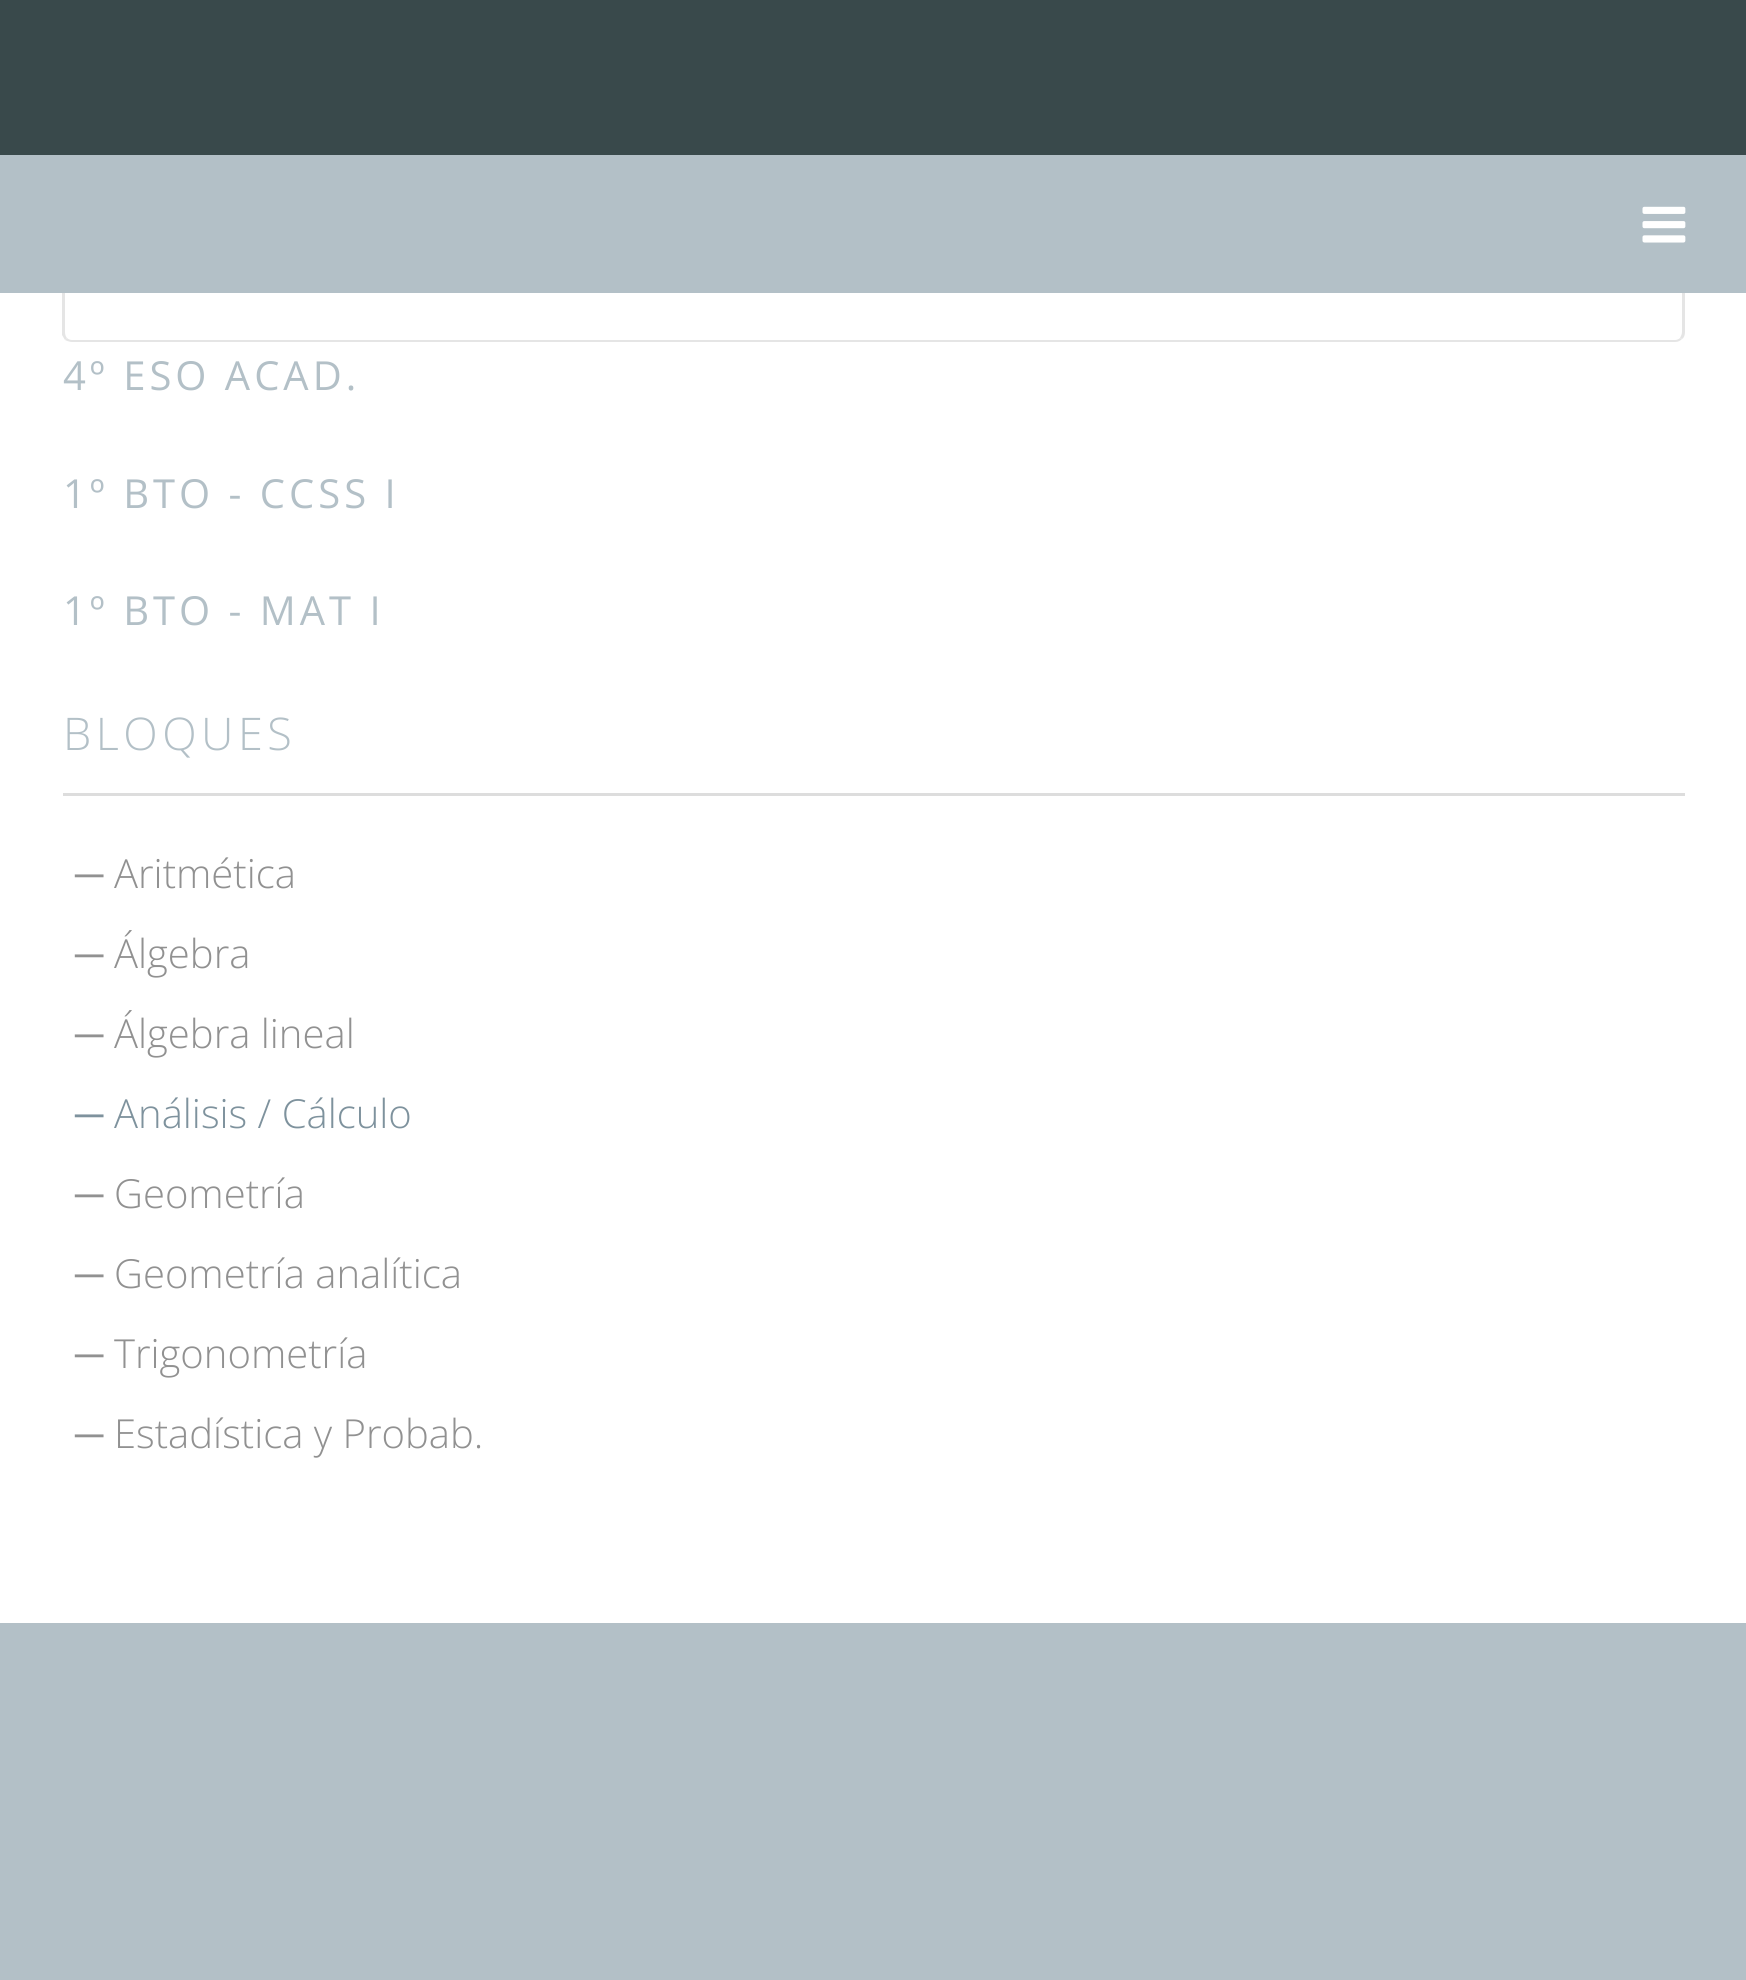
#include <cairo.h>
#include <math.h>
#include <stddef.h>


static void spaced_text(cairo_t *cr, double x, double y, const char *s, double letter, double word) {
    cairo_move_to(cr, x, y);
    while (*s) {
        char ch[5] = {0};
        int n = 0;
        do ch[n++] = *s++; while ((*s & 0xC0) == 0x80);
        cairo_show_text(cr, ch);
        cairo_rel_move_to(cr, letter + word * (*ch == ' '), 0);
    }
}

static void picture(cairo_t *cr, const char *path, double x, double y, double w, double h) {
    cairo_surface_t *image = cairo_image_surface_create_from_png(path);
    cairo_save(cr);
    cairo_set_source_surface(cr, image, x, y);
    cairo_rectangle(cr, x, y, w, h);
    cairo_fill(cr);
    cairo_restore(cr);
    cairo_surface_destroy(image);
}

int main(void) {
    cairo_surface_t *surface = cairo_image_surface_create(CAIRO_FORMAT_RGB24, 1746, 1980);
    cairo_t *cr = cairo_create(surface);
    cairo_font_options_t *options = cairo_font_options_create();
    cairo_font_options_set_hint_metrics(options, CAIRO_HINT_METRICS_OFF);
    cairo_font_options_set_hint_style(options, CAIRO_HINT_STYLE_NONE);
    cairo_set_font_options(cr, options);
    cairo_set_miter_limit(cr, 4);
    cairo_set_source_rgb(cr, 1, 1, 1);
    cairo_paint(cr);
    cairo_set_source_rgb(cr, 0.224, 0.286, 0.294);
    cairo_rectangle(cr, 0, 0, 1746, 155);
    cairo_fill(cr);
    cairo_set_source_rgb(cr, 0.898, 0.898, 0.898);
    cairo_new_path(cr);
    cairo_move_to(cr, 1685, 332);
    cairo_line_to(cr, 1685, 245);
    cairo_curve_to(cr, 1685, 243, 1685, 241, 1684, 239);
    cairo_line_to(cr, 1682, 248);
    cairo_line_to(cr, 1682, 332);
    cairo_curve_to(cr, 1682, 334, 1681, 336, 1680, 338);
    cairo_line_to(cr, 1682, 339);
    cairo_curve_to(cr, 1684, 338, 1685, 335, 1685, 332);
    cairo_close_path(cr);
    cairo_fill(cr);
    cairo_new_path(cr);
    cairo_move_to(cr, 1682, 339);
    cairo_curve_to(cr, 1680, 341, 1678, 342, 1675, 342);
    cairo_line_to(cr, 72, 342);
    cairo_curve_to(cr, 70, 342, 67, 341, 65, 340);
    cairo_line_to(cr, 67, 338);
    cairo_curve_to(cr, 68, 339, 70, 340, 72, 340);
    cairo_line_to(cr, 1675, 340);
    cairo_curve_to(cr, 1677, 340, 1679, 339, 1680, 338);
    cairo_close_path(cr);
    cairo_fill(cr);
    cairo_new_path(cr);
    cairo_move_to(cr, 62, 242);
    cairo_line_to(cr, 64, 239);
    cairo_line_to(cr, 65, 245);
    cairo_line_to(cr, 65, 332);
    cairo_curve_to(cr, 65, 335, 66, 337, 67, 338);
    cairo_line_to(cr, 65, 340);
    cairo_curve_to(cr, 64, 338, 63, 337, 62, 335);
    cairo_close_path(cr);
    cairo_fill(cr);
    cairo_set_source_rgb(cr, 0.702, 0.753, 0.78);
    cairo_rectangle(cr, 0, 155, 1746, 138);
    cairo_fill(cr);
    picture(cr, "img1.png", 1642, 206, 44, 37);
    cairo_select_font_face(cr, "Open Sans", CAIRO_FONT_SLANT_NORMAL, CAIRO_FONT_WEIGHT_NORMAL);
    cairo_set_font_size(cr, 40);
    spaced_text(cr, 63, 390, "4º ESO ACAD.", 4, 0);
    spaced_text(cr, 63, 508, "1º BTO - CCSS I", 4, 0);
    spaced_text(cr, 63, 625, "1º BTO - MAT I", 4, 0);
    cairo_set_source_rgb(cr, 0.867, 0.867, 0.867);
    cairo_rectangle(cr, 63, 793, 1622, 3);
    cairo_fill(cr);
    cairo_select_font_face(cr, "Open Sans Light", CAIRO_FONT_SLANT_NORMAL, CAIRO_FONT_WEIGHT_NORMAL);
    cairo_set_font_size(cr, 45);
    cairo_set_source_rgb(cr, 0.702, 0.753, 0.78);
    spaced_text(cr, 63, 750, "BLOQUES", 4.5, 0);
    cairo_select_font_face(cr, "Liberation Sans", CAIRO_FONT_SLANT_NORMAL, CAIRO_FONT_WEIGHT_NORMAL);
    cairo_set_font_size(cr, 40);
    cairo_set_source_rgb(cr, 0.569, 0.569, 0.569);
    cairo_move_to(cr, 75, 888);
    cairo_show_text(cr, "─");
    cairo_select_font_face(cr, "Open Sans Light", CAIRO_FONT_SLANT_NORMAL, CAIRO_FONT_WEIGHT_NORMAL);
    cairo_move_to(cr, 114, 888);
    cairo_show_text(cr, "Aritmética");
    cairo_select_font_face(cr, "Liberation Sans", CAIRO_FONT_SLANT_NORMAL, CAIRO_FONT_WEIGHT_NORMAL);
    cairo_move_to(cr, 75, 968);
    cairo_show_text(cr, "─");
    cairo_select_font_face(cr, "Open Sans Light", CAIRO_FONT_SLANT_NORMAL, CAIRO_FONT_WEIGHT_NORMAL);
    cairo_move_to(cr, 114, 968);
    cairo_show_text(cr, "Álgebra");
    cairo_select_font_face(cr, "Liberation Sans", CAIRO_FONT_SLANT_NORMAL, CAIRO_FONT_WEIGHT_NORMAL);
    cairo_move_to(cr, 75, 1048);
    cairo_show_text(cr, "─");
    cairo_select_font_face(cr, "Open Sans Light", CAIRO_FONT_SLANT_NORMAL, CAIRO_FONT_WEIGHT_NORMAL);
    cairo_move_to(cr, 114, 1048);
    cairo_show_text(cr, "Álgebra lineal");
    cairo_select_font_face(cr, "Liberation Sans", CAIRO_FONT_SLANT_NORMAL, CAIRO_FONT_WEIGHT_NORMAL);
    cairo_set_source_rgb(cr, 0.494, 0.573, 0.616);
    cairo_move_to(cr, 75, 1128);
    cairo_show_text(cr, "─");
    cairo_select_font_face(cr, "Open Sans Light", CAIRO_FONT_SLANT_NORMAL, CAIRO_FONT_WEIGHT_NORMAL);
    cairo_move_to(cr, 114, 1128);
    cairo_show_text(cr, "Análisis / Cálculo");
    cairo_select_font_face(cr, "Liberation Sans", CAIRO_FONT_SLANT_NORMAL, CAIRO_FONT_WEIGHT_NORMAL);
    cairo_set_source_rgb(cr, 0.569, 0.569, 0.569);
    cairo_move_to(cr, 75, 1208);
    cairo_show_text(cr, "─");
    cairo_select_font_face(cr, "Open Sans Light", CAIRO_FONT_SLANT_NORMAL, CAIRO_FONT_WEIGHT_NORMAL);
    cairo_move_to(cr, 114, 1208);
    cairo_show_text(cr, "Geometría");
    cairo_select_font_face(cr, "Liberation Sans", CAIRO_FONT_SLANT_NORMAL, CAIRO_FONT_WEIGHT_NORMAL);
    cairo_move_to(cr, 75, 1288);
    cairo_show_text(cr, "─");
    cairo_select_font_face(cr, "Open Sans Light", CAIRO_FONT_SLANT_NORMAL, CAIRO_FONT_WEIGHT_NORMAL);
    cairo_move_to(cr, 114, 1288);
    cairo_show_text(cr, "Geometría analítica");
    cairo_select_font_face(cr, "Liberation Sans", CAIRO_FONT_SLANT_NORMAL, CAIRO_FONT_WEIGHT_NORMAL);
    cairo_move_to(cr, 75, 1368);
    cairo_show_text(cr, "─");
    cairo_select_font_face(cr, "Open Sans Light", CAIRO_FONT_SLANT_NORMAL, CAIRO_FONT_WEIGHT_NORMAL);
    cairo_move_to(cr, 114, 1368);
    cairo_show_text(cr, "Trigonometría");
    cairo_select_font_face(cr, "Liberation Sans", CAIRO_FONT_SLANT_NORMAL, CAIRO_FONT_WEIGHT_NORMAL);
    cairo_move_to(cr, 75, 1448);
    cairo_show_text(cr, "─");
    cairo_select_font_face(cr, "Open Sans Light", CAIRO_FONT_SLANT_NORMAL, CAIRO_FONT_WEIGHT_NORMAL);
    cairo_move_to(cr, 114, 1448);
    cairo_show_text(cr, "Estadística y Probab.");
    cairo_set_source_rgb(cr, 0.702, 0.753, 0.78);
    cairo_rectangle(cr, 0, 1623, 1746, 357);
    cairo_fill(cr);
    cairo_surface_write_to_png(surface, "page.png");
    cairo_font_options_destroy(options);
    cairo_destroy(cr);
    cairo_surface_destroy(surface);
    return 0;
}
